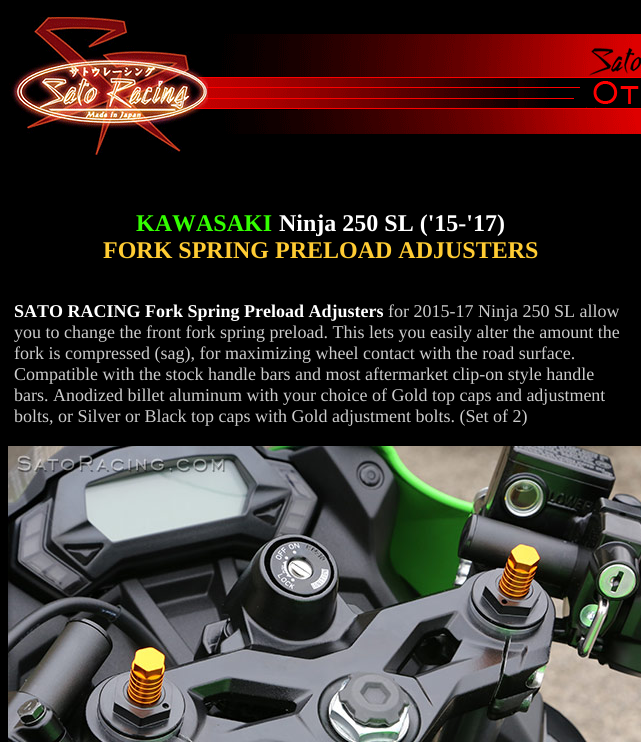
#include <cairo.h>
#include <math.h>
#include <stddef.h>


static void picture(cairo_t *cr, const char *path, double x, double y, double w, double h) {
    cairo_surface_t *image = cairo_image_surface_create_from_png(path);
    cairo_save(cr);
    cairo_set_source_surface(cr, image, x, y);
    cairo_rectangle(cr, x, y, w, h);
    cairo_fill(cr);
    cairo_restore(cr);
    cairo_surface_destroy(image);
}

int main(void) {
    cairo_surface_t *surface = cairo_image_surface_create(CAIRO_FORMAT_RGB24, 641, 742);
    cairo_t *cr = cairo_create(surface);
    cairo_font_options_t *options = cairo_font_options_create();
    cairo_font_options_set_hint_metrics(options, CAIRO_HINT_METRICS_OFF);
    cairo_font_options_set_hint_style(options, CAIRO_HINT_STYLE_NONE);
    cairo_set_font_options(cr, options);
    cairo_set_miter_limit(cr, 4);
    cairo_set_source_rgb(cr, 0, 0, 0);
    cairo_paint(cr);
    picture(cr, "img1.png", 9, 17, 632, 138);
    cairo_select_font_face(cr, "Liberation Serif", CAIRO_FONT_SLANT_NORMAL, CAIRO_FONT_WEIGHT_BOLD);
    cairo_set_font_size(cr, 24);
    cairo_set_source_rgb(cr, 0.2, 1, 0);
    cairo_move_to(cr, 136, 231);
    cairo_show_text(cr, "KAWASAKI");
    cairo_set_source_rgb(cr, 1, 1, 1);
    cairo_move_to(cr, 279, 231);
    cairo_show_text(cr, "Ninja 250 SL ('15-'17)");
    cairo_set_source_rgb(cr, 1, 0.8, 0.2);
    cairo_move_to(cr, 103, 258);
    cairo_show_text(cr, "FORK SPRING PRELOAD ADJUSTERS");
    cairo_set_font_size(cr, 18);
    cairo_set_source_rgb(cr, 1, 1, 1);
    cairo_move_to(cr, 14, 317);
    cairo_show_text(cr, "SATO RACING Fork Spring Preload Adjusters");
    cairo_select_font_face(cr, "Liberation Serif", CAIRO_FONT_SLANT_NORMAL, CAIRO_FONT_WEIGHT_NORMAL);
    cairo_set_source_rgb(cr, 0.8, 0.8, 0.8);
    cairo_move_to(cr, 388, 317);
    cairo_show_text(cr, "for 2015-17 Ninja 250 SL allow");
    cairo_move_to(cr, 14, 338);
    cairo_show_text(cr, "you to change the front fork spring preload. This lets you easily alter the amount the");
    cairo_move_to(cr, 14, 359);
    cairo_show_text(cr, "fork is compressed (sag), for maximizing wheel contact with the road surface.");
    cairo_move_to(cr, 14, 380);
    cairo_show_text(cr, "Compatible with the stock handle bars and most aftermarket clip-on style handle");
    cairo_move_to(cr, 14, 401);
    cairo_show_text(cr, "bars. Anodized billet aluminum with your choice of Gold top caps and adjustment");
    cairo_move_to(cr, 14, 422);
    cairo_show_text(cr, "bolts, or Silver or Black top caps with Gold adjustment bolts. (Set of 2)");
    picture(cr, "img2.png", 8, 446, 633, 296);
    cairo_surface_write_to_png(surface, "page.png");
    cairo_font_options_destroy(options);
    cairo_destroy(cr);
    cairo_surface_destroy(surface);
    return 0;
}
